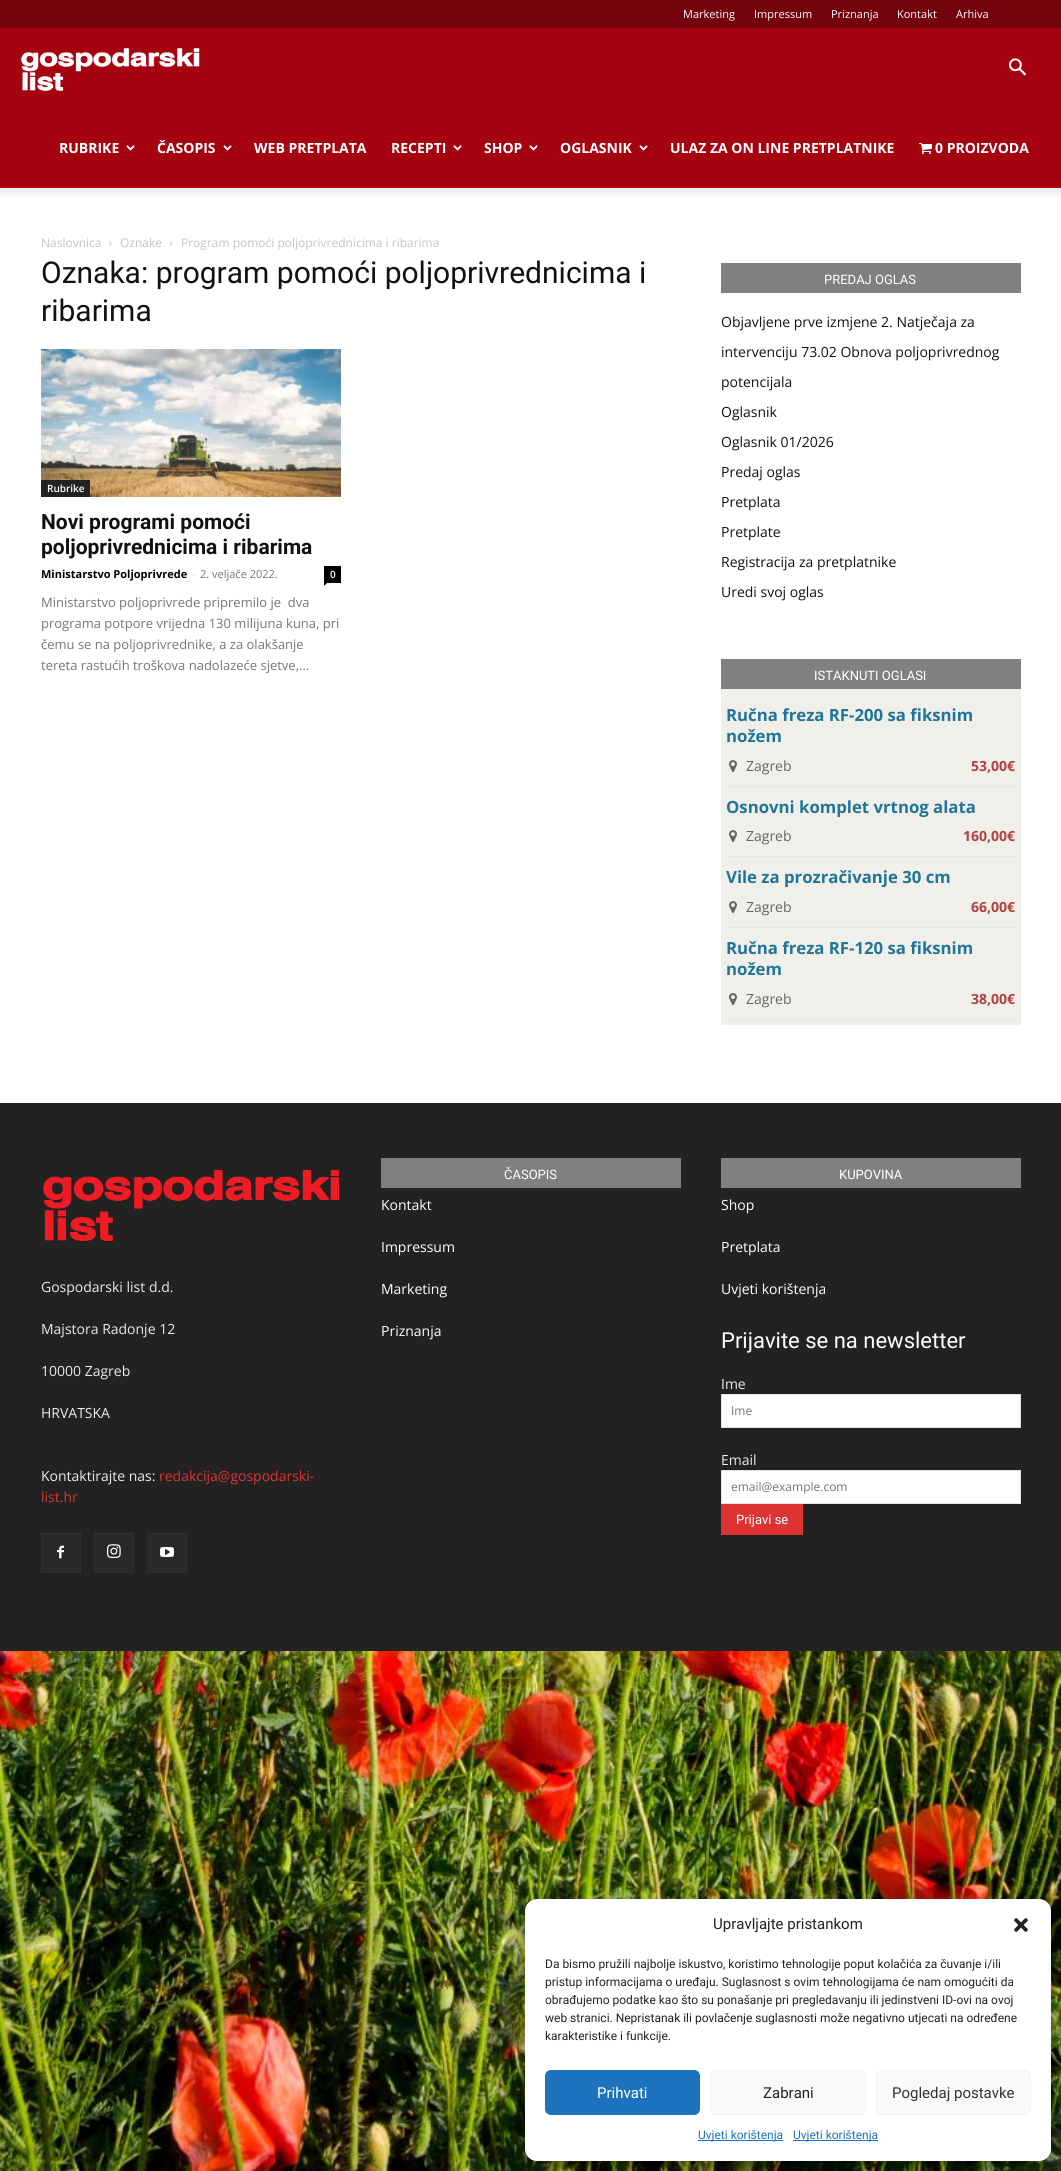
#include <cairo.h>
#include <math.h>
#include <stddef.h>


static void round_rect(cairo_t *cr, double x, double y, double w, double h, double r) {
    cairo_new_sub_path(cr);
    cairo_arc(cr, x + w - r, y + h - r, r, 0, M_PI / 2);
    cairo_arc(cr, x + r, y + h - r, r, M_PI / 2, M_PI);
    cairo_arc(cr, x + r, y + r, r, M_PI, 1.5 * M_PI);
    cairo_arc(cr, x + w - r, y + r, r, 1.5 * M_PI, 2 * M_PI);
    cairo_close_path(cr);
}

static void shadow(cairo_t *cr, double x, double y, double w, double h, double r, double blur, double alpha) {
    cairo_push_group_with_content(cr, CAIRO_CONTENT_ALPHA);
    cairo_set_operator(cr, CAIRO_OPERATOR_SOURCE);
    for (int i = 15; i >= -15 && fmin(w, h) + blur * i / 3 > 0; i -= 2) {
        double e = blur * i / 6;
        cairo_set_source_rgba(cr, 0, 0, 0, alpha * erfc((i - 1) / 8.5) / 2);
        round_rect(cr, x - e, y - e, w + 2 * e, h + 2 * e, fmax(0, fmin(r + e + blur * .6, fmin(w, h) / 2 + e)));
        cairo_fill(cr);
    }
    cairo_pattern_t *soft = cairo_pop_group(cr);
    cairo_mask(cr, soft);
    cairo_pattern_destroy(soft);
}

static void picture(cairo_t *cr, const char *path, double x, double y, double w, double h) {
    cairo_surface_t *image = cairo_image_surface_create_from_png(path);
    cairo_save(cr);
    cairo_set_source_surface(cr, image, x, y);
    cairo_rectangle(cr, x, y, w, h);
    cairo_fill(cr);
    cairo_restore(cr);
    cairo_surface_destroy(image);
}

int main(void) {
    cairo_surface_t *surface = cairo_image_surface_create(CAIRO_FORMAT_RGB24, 1061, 2171);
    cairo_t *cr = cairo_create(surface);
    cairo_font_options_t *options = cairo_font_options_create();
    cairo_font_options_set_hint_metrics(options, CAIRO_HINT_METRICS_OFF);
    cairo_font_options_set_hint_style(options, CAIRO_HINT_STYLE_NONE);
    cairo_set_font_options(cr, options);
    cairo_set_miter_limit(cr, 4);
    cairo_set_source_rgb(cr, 1, 1, 1);
    cairo_paint(cr);
    cairo_set_source_rgb(cr, 0.451, 0.008, 0.047);
    cairo_rectangle(cr, 0, 0, 1061, 28);
    cairo_fill(cr);
    cairo_select_font_face(cr, "Open Sans", CAIRO_FONT_SLANT_NORMAL, CAIRO_FONT_WEIGHT_NORMAL);
    cairo_set_font_size(cr, 11);
    cairo_set_source_rgb(cr, 1, 1, 1);
    cairo_move_to(cr, 683, 18);
    cairo_show_text(cr, "Marketing");
    cairo_move_to(cr, 754, 18);
    cairo_show_text(cr, "Impressum");
    cairo_move_to(cr, 831, 18);
    cairo_show_text(cr, "Priznanja");
    cairo_move_to(cr, 897, 18);
    cairo_show_text(cr, "Kontakt");
    cairo_move_to(cr, 956, 18);
    cairo_show_text(cr, "Arhiva");
    cairo_set_source_rgb(cr, 0.651, 0.012, 0.067);
    cairo_rectangle(cr, 0, 28, 1061, 160);
    cairo_fill(cr);
    picture(cr, "img1.png", 1009, 58, 17, 18);
    picture(cr, "img2.png", 20, 48, 180, 43);
    cairo_select_font_face(cr, "Open Sans", CAIRO_FONT_SLANT_NORMAL, CAIRO_FONT_WEIGHT_BOLD);
    cairo_set_font_size(cr, 14);
    cairo_set_source_rgb(cr, 1, 1, 1);
    cairo_move_to(cr, 59, 153);
    cairo_show_text(cr, "RUBRIKE");
    picture(cr, "img3.png", 126, 145, 9, 6);
    cairo_move_to(cr, 157, 153);
    cairo_show_text(cr, "ČASOPIS");
    picture(cr, "img3.png", 223, 145, 9, 6);
    cairo_move_to(cr, 254, 153);
    cairo_show_text(cr, "WEB PRETPLATA");
    cairo_move_to(cr, 391, 153);
    cairo_show_text(cr, "RECEPTI");
    picture(cr, "img3.png", 453, 145, 9, 6);
    cairo_move_to(cr, 484, 153);
    cairo_show_text(cr, "SHOP");
    picture(cr, "img3.png", 529, 145, 9, 6);
    cairo_move_to(cr, 560, 153);
    cairo_show_text(cr, "OGLASNIK");
    picture(cr, "img3.png", 639, 145, 9, 6);
    cairo_move_to(cr, 670, 153);
    cairo_show_text(cr, "ULAZ ZA ON LINE PRETPLATNIKE");
    picture(cr, "img4.png", 919, 143, 13, 11);
    cairo_move_to(cr, 935, 153);
    cairo_show_text(cr, "0 PROIZVODA");
    picture(cr, "img5.png", 0, 188, 1061, 9);
    cairo_select_font_face(cr, "Open Sans", CAIRO_FONT_SLANT_NORMAL, CAIRO_FONT_WEIGHT_NORMAL);
    cairo_set_font_size(cr, 12);
    cairo_set_source_rgb(cr, 0.765, 0.765, 0.765);
    cairo_move_to(cr, 41, 247);
    cairo_show_text(cr, "Naslovnica");
    picture(cr, "img6.png", 109, 241, 3, 5);
    cairo_move_to(cr, 120, 247);
    cairo_show_text(cr, "Oznake");
    picture(cr, "img6.png", 170, 241, 3, 5);
    cairo_move_to(cr, 181, 247);
    cairo_show_text(cr, "Program pomoći poljoprivrednicima i ribarima");
    cairo_select_font_face(cr, "Roboto", CAIRO_FONT_SLANT_NORMAL, CAIRO_FONT_WEIGHT_NORMAL);
    cairo_set_font_size(cr, 30);
    cairo_set_source_rgb(cr, 0.067, 0.067, 0.067);
    cairo_move_to(cr, 41, 283);
    cairo_show_text(cr, "Oznaka: program pomoći poljoprivrednicima i");
    cairo_move_to(cr, 41, 321);
    cairo_show_text(cr, "ribarima");
    picture(cr, "img7.png", 41, 349, 300, 148);
    cairo_set_source_rgb(cr, 0.133, 0.133, 0.133);
    cairo_rectangle(cr, 41, 480, 49, 17);
    cairo_fill(cr);
    cairo_select_font_face(cr, "Open Sans SemiBold", CAIRO_FONT_SLANT_NORMAL, CAIRO_FONT_WEIGHT_NORMAL);
    cairo_set_font_size(cr, 10);
    cairo_set_source_rgb(cr, 1, 1, 1);
    cairo_move_to(cr, 47, 492);
    cairo_show_text(cr, "Rubrike");
    cairo_select_font_face(cr, "Roboto", CAIRO_FONT_SLANT_NORMAL, CAIRO_FONT_WEIGHT_BOLD);
    cairo_set_font_size(cr, 21);
    cairo_set_source_rgb(cr, 0.067, 0.067, 0.067);
    cairo_move_to(cr, 41, 529);
    cairo_show_text(cr, "Novi programi pomoći");
    cairo_move_to(cr, 41, 554);
    cairo_show_text(cr, "poljoprivrednicima i ribarima");
    cairo_select_font_face(cr, "Open Sans", CAIRO_FONT_SLANT_NORMAL, CAIRO_FONT_WEIGHT_BOLD);
    cairo_set_font_size(cr, 11);
    cairo_set_source_rgb(cr, 0, 0, 0);
    cairo_move_to(cr, 41, 578);
    cairo_show_text(cr, "Ministarstvo Poljoprivrede");
    cairo_select_font_face(cr, "Open Sans", CAIRO_FONT_SLANT_NORMAL, CAIRO_FONT_WEIGHT_NORMAL);
    cairo_set_source_rgb(cr, 0.8, 0.8, 0.8);
    cairo_move_to(cr, 192, 578);
    cairo_show_text(cr, "-");
    cairo_set_source_rgb(cr, 0.463, 0.463, 0.463);
    cairo_move_to(cr, 200, 578);
    cairo_show_text(cr, "2. veljače 2022.");
    cairo_set_source_rgb(cr, 0, 0, 0);
    cairo_rectangle(cr, 324, 566, 17, 17);
    cairo_fill(cr);
    cairo_select_font_face(cr, "Open Sans SemiBold", CAIRO_FONT_SLANT_NORMAL, CAIRO_FONT_WEIGHT_NORMAL);
    cairo_set_font_size(cr, 10);
    cairo_set_source_rgb(cr, 1, 1, 1);
    cairo_move_to(cr, 330, 578);
    cairo_show_text(cr, "0");
    cairo_set_source_rgb(cr, 0, 0, 0);
    cairo_new_path(cr);
    cairo_move_to(cr, 324, 583);
    cairo_line_to(cr, 327, 583);
    cairo_line_to(cr, 324, 586);
    cairo_close_path(cr);
    cairo_fill(cr);
    cairo_select_font_face(cr, "Open Sans", CAIRO_FONT_SLANT_NORMAL, CAIRO_FONT_WEIGHT_NORMAL);
    cairo_set_font_size(cr, 13);
    cairo_set_source_rgb(cr, 0.463, 0.463, 0.463);
    cairo_move_to(cr, 41, 607);
    cairo_show_text(cr, "Ministarstvo poljoprivrede pripremilo je  dva");
    cairo_move_to(cr, 41, 628);
    cairo_show_text(cr, "programa potpore vrijedna 130 milijuna kuna, pri");
    cairo_move_to(cr, 41, 649);
    cairo_show_text(cr, "čemu se na poljoprivrednike, a za olakšanje");
    cairo_move_to(cr, 41, 670);
    cairo_show_text(cr, "tereta rastućih troškova nadolazeće sjetve,...");
    cairo_set_source_rgb(cr, 0.502, 0.502, 0.502);
    cairo_rectangle(cr, 721, 263, 300, 30);
    cairo_fill(cr);
    cairo_select_font_face(cr, "Roboto", CAIRO_FONT_SLANT_NORMAL, CAIRO_FONT_WEIGHT_NORMAL);
    cairo_set_source_rgb(cr, 1, 1, 1);
    cairo_move_to(cr, 824, 284);
    cairo_show_text(cr, "PREDAJ OGLAS");
    cairo_select_font_face(cr, "Open Sans", CAIRO_FONT_SLANT_NORMAL, CAIRO_FONT_WEIGHT_NORMAL);
    cairo_set_font_size(cr, 14);
    cairo_set_source_rgb(cr, 0.067, 0.067, 0.067);
    cairo_move_to(cr, 721, 327);
    cairo_show_text(cr, "Objavljene prve izmjene 2. Natječaja za");
    cairo_move_to(cr, 721, 357);
    cairo_show_text(cr, "intervenciju 73.02 Obnova poljoprivrednog");
    cairo_move_to(cr, 721, 387);
    cairo_show_text(cr, "potencijala");
    cairo_move_to(cr, 721, 417);
    cairo_show_text(cr, "Oglasnik");
    cairo_move_to(cr, 721, 447);
    cairo_show_text(cr, "Oglasnik 01/2026");
    cairo_move_to(cr, 721, 477);
    cairo_show_text(cr, "Predaj oglas");
    cairo_move_to(cr, 721, 507);
    cairo_show_text(cr, "Pretplata");
    cairo_move_to(cr, 721, 537);
    cairo_show_text(cr, "Pretplate");
    cairo_move_to(cr, 721, 567);
    cairo_show_text(cr, "Registracija za pretplatnike");
    cairo_move_to(cr, 721, 597);
    cairo_show_text(cr, "Uredi svoj oglas");
    cairo_set_source_rgb(cr, 0.941, 0.937, 0.914);
    cairo_rectangle(cr, 721, 689, 300, 336);
    cairo_fill(cr);
    cairo_set_source_rgb(cr, 0.502, 0.502, 0.502);
    cairo_rectangle(cr, 721, 659, 300, 30);
    cairo_fill(cr);
    cairo_select_font_face(cr, "Roboto", CAIRO_FONT_SLANT_NORMAL, CAIRO_FONT_WEIGHT_NORMAL);
    cairo_set_font_size(cr, 13);
    cairo_set_source_rgb(cr, 1, 1, 1);
    cairo_move_to(cr, 814, 680);
    cairo_show_text(cr, "ISTAKNUTI OGLASI");
    cairo_set_source_rgb(cr, 0.898, 0.898, 0.898);
    cairo_rectangle(cr, 726, 786, 290, 1);
    cairo_fill(cr);
    cairo_select_font_face(cr, "Open Sans", CAIRO_FONT_SLANT_NORMAL, CAIRO_FONT_WEIGHT_BOLD);
    cairo_set_font_size(cr, 16.75);
    cairo_set_source_rgb(cr, 0.129, 0.459, 0.608);
    cairo_move_to(cr, 726, 721);
    cairo_show_text(cr, "Ručna freza RF-200 sa fiksnim");
    cairo_move_to(cr, 726, 742);
    cairo_show_text(cr, "nožem");
    picture(cr, "img8.png", 729, 760, 8, 12);
    cairo_select_font_face(cr, "Open Sans", CAIRO_FONT_SLANT_NORMAL, CAIRO_FONT_WEIGHT_NORMAL);
    cairo_set_font_size(cr, 14);
    cairo_set_source_rgb(cr, 0.4, 0.4, 0.4);
    cairo_move_to(cr, 746, 771);
    cairo_show_text(cr, "Zagreb");
    cairo_select_font_face(cr, "Open Sans", CAIRO_FONT_SLANT_NORMAL, CAIRO_FONT_WEIGHT_BOLD);
    cairo_set_source_rgb(cr, 0.702, 0.251, 0.251);
    cairo_move_to(cr, 971, 771);
    cairo_show_text(cr, "53,00€");
    cairo_set_source_rgb(cr, 0.898, 0.898, 0.898);
    cairo_rectangle(cr, 726, 856, 290, 1);
    cairo_fill(cr);
    cairo_set_font_size(cr, 16.75);
    cairo_set_source_rgb(cr, 0.129, 0.459, 0.608);
    cairo_move_to(cr, 726, 813);
    cairo_show_text(cr, "Osnovni komplet vrtnog alata");
    picture(cr, "img8.png", 729, 830, 8, 12);
    cairo_select_font_face(cr, "Open Sans", CAIRO_FONT_SLANT_NORMAL, CAIRO_FONT_WEIGHT_NORMAL);
    cairo_set_font_size(cr, 14);
    cairo_set_source_rgb(cr, 0.4, 0.4, 0.4);
    cairo_move_to(cr, 746, 841);
    cairo_show_text(cr, "Zagreb");
    cairo_select_font_face(cr, "Open Sans", CAIRO_FONT_SLANT_NORMAL, CAIRO_FONT_WEIGHT_BOLD);
    cairo_set_source_rgb(cr, 0.702, 0.251, 0.251);
    cairo_move_to(cr, 963, 841);
    cairo_show_text(cr, "160,00€");
    cairo_set_source_rgb(cr, 0.898, 0.898, 0.898);
    cairo_rectangle(cr, 726, 927, 290, 1);
    cairo_fill(cr);
    cairo_set_font_size(cr, 16.75);
    cairo_set_source_rgb(cr, 0.129, 0.459, 0.608);
    cairo_move_to(cr, 726, 883);
    cairo_show_text(cr, "Vile za prozračivanje 30 cm");
    picture(cr, "img8.png", 729, 901, 8, 12);
    cairo_select_font_face(cr, "Open Sans", CAIRO_FONT_SLANT_NORMAL, CAIRO_FONT_WEIGHT_NORMAL);
    cairo_set_font_size(cr, 14);
    cairo_set_source_rgb(cr, 0.4, 0.4, 0.4);
    cairo_move_to(cr, 746, 912);
    cairo_show_text(cr, "Zagreb");
    cairo_select_font_face(cr, "Open Sans", CAIRO_FONT_SLANT_NORMAL, CAIRO_FONT_WEIGHT_BOLD);
    cairo_set_source_rgb(cr, 0.702, 0.251, 0.251);
    cairo_move_to(cr, 971, 912);
    cairo_show_text(cr, "66,00€");
    cairo_set_source_rgb(cr, 0.898, 0.898, 0.898);
    cairo_rectangle(cr, 726, 1019, 290, 1);
    cairo_fill(cr);
    cairo_set_font_size(cr, 16.75);
    cairo_set_source_rgb(cr, 0.129, 0.459, 0.608);
    cairo_move_to(cr, 726, 954);
    cairo_show_text(cr, "Ručna freza RF-120 sa fiksnim");
    cairo_move_to(cr, 726, 975);
    cairo_show_text(cr, "nožem");
    picture(cr, "img8.png", 729, 993, 8, 12);
    cairo_select_font_face(cr, "Open Sans", CAIRO_FONT_SLANT_NORMAL, CAIRO_FONT_WEIGHT_NORMAL);
    cairo_set_font_size(cr, 14);
    cairo_set_source_rgb(cr, 0.4, 0.4, 0.4);
    cairo_move_to(cr, 746, 1004);
    cairo_show_text(cr, "Zagreb");
    cairo_select_font_face(cr, "Open Sans", CAIRO_FONT_SLANT_NORMAL, CAIRO_FONT_WEIGHT_BOLD);
    cairo_set_source_rgb(cr, 0.702, 0.251, 0.251);
    cairo_move_to(cr, 971, 1004);
    cairo_show_text(cr, "38,00€");
    cairo_set_source_rgb(cr, 0.133, 0.133, 0.133);
    cairo_rectangle(cr, 0, 1103, 1061, 548);
    cairo_fill(cr);
    picture(cr, "img9.png", 43, 1170, 296, 71);
    cairo_select_font_face(cr, "Open Sans", CAIRO_FONT_SLANT_NORMAL, CAIRO_FONT_WEIGHT_NORMAL);
    cairo_set_source_rgb(cr, 0.918, 0.918, 0.918);
    cairo_move_to(cr, 41, 1292);
    cairo_show_text(cr, "Gospodarski list d.d.");
    cairo_move_to(cr, 41, 1334);
    cairo_show_text(cr, "Majstora Radonje 12");
    cairo_move_to(cr, 41, 1376);
    cairo_show_text(cr, "10000 Zagreb");
    cairo_move_to(cr, 41, 1418);
    cairo_show_text(cr, "HRVATSKA");
    cairo_move_to(cr, 41, 1481);
    cairo_show_text(cr, "Kontaktirajte nas:");
    cairo_set_source_rgb(cr, 0.867, 0.2, 0.2);
    cairo_move_to(cr, 159, 1481);
    cairo_show_text(cr, "redakcija@gospodarski-");
    cairo_move_to(cr, 41, 1502);
    cairo_show_text(cr, "list.hr");
    cairo_set_source_rgb(cr, 0.161, 0.161, 0.161);
    cairo_rectangle(cr, 42, 1534, 38, 38);
    cairo_fill(cr);
    picture(cr, "img10.png", 57, 1545, 7, 14);
    cairo_rectangle(cr, 41.5, 1533.5, 39, 39);
    cairo_set_source_rgb(cr, 0.184, 0.184, 0.184);
    cairo_set_line_width(cr, 1);
    cairo_stroke(cr);
    cairo_set_source_rgb(cr, 0.161, 0.161, 0.161);
    cairo_rectangle(cr, 95, 1534, 38, 38);
    cairo_fill(cr);
    picture(cr, "img11.png", 107, 1544, 14, 14);
    cairo_rectangle(cr, 94.5, 1533.5, 39, 39);
    cairo_set_source_rgb(cr, 0.184, 0.184, 0.184);
    cairo_stroke(cr);
    cairo_set_source_rgb(cr, 0.161, 0.161, 0.161);
    cairo_rectangle(cr, 148, 1534, 38, 38);
    cairo_fill(cr);
    picture(cr, "img12.png", 160, 1547, 14, 10);
    cairo_rectangle(cr, 147.5, 1533.5, 39, 39);
    cairo_set_source_rgb(cr, 0.184, 0.184, 0.184);
    cairo_stroke(cr);
    cairo_set_source_rgb(cr, 0.502, 0.502, 0.502);
    cairo_rectangle(cr, 381, 1158, 300, 30);
    cairo_fill(cr);
    cairo_select_font_face(cr, "Roboto", CAIRO_FONT_SLANT_NORMAL, CAIRO_FONT_WEIGHT_NORMAL);
    cairo_set_font_size(cr, 13);
    cairo_set_source_rgb(cr, 1, 1, 1);
    cairo_move_to(cr, 504, 1179);
    cairo_show_text(cr, "ČASOPIS");
    cairo_select_font_face(cr, "Open Sans", CAIRO_FONT_SLANT_NORMAL, CAIRO_FONT_WEIGHT_NORMAL);
    cairo_set_font_size(cr, 14);
    cairo_move_to(cr, 381, 1210);
    cairo_show_text(cr, "Kontakt");
    cairo_move_to(cr, 381, 1252);
    cairo_show_text(cr, "Impressum");
    cairo_move_to(cr, 381, 1294);
    cairo_show_text(cr, "Marketing");
    cairo_move_to(cr, 381, 1336);
    cairo_show_text(cr, "Priznanja");
    cairo_set_source_rgb(cr, 0.502, 0.502, 0.502);
    cairo_rectangle(cr, 721, 1158, 300, 30);
    cairo_fill(cr);
    cairo_select_font_face(cr, "Roboto", CAIRO_FONT_SLANT_NORMAL, CAIRO_FONT_WEIGHT_NORMAL);
    cairo_set_font_size(cr, 13);
    cairo_set_source_rgb(cr, 1, 1, 1);
    cairo_move_to(cr, 839, 1179);
    cairo_show_text(cr, "KUPOVINA");
    cairo_select_font_face(cr, "Open Sans", CAIRO_FONT_SLANT_NORMAL, CAIRO_FONT_WEIGHT_NORMAL);
    cairo_set_font_size(cr, 14);
    cairo_move_to(cr, 721, 1210);
    cairo_show_text(cr, "Shop");
    cairo_move_to(cr, 721, 1252);
    cairo_show_text(cr, "Pretplata");
    cairo_move_to(cr, 721, 1294);
    cairo_show_text(cr, "Uvjeti korištenja");
    cairo_select_font_face(cr, "Roboto", CAIRO_FONT_SLANT_NORMAL, CAIRO_FONT_WEIGHT_NORMAL);
    cairo_set_font_size(cr, 22);
    cairo_move_to(cr, 721, 1348);
    cairo_show_text(cr, "Prijavite se na newsletter");
    cairo_select_font_face(cr, "Open Sans", CAIRO_FONT_SLANT_NORMAL, CAIRO_FONT_WEIGHT_NORMAL);
    cairo_set_font_size(cr, 14);
    cairo_set_source_rgb(cr, 0.918, 0.918, 0.918);
    cairo_move_to(cr, 721, 1389);
    cairo_show_text(cr, "Ime");
    cairo_set_source_rgb(cr, 1, 1, 1);
    cairo_rectangle(cr, 721.5, 1394.5, 299, 33);
    cairo_fill_preserve(cr);
    cairo_set_source_rgb(cr, 0.882, 0.882, 0.882);
    cairo_stroke(cr);
    cairo_set_font_size(cr, 12);
    cairo_set_source_rgb(cr, 0.463, 0.463, 0.463);
    cairo_move_to(cr, 731, 1415);
    cairo_show_text(cr, "Ime");
    cairo_set_font_size(cr, 14);
    cairo_set_source_rgb(cr, 0.918, 0.918, 0.918);
    cairo_move_to(cr, 721, 1465);
    cairo_show_text(cr, "Email");
    cairo_set_source_rgb(cr, 1, 1, 1);
    cairo_rectangle(cr, 721.5, 1470.5, 299, 33);
    cairo_fill_preserve(cr);
    cairo_set_source_rgb(cr, 0.882, 0.882, 0.882);
    cairo_stroke(cr);
    cairo_set_font_size(cr, 12);
    cairo_set_source_rgb(cr, 0.463, 0.463, 0.463);
    cairo_move_to(cr, 731, 1491);
    cairo_show_text(cr, "email@example.com");
    cairo_set_source_rgb(cr, 0.867, 0.2, 0.2);
    cairo_rectangle(cr, 721, 1504, 82, 31);
    cairo_fill(cr);
    cairo_select_font_face(cr, "Roboto", CAIRO_FONT_SLANT_NORMAL, CAIRO_FONT_WEIGHT_NORMAL);
    cairo_set_font_size(cr, 13);
    cairo_set_source_rgb(cr, 1, 1, 1);
    cairo_move_to(cr, 736, 1524);
    cairo_show_text(cr, "Prijavi se");
    picture(cr, "img13.png", 0, 1651, 1061, 520);
    cairo_set_source_rgb(cr, 0, 0, 0);
    shadow(cr, 525, 1905, 526, 262, 12, 3, 0.23);
    shadow(cr, 525, 1909, 526, 262, 12, 10, 0.19);
    cairo_set_source_rgb(cr, 1, 1, 1);
    round_rect(cr, 525, 1899, 526, 262, 12);
    cairo_fill(cr);
    cairo_set_font_size(cr, 15);
    cairo_set_source_rgb(cr, 0.133, 0.133, 0.133);
    cairo_move_to(cr, 713, 1929);
    cairo_show_text(cr, "Upravljajte pristankom");
    picture(cr, "img14.png", 1014, 1918, 14, 14);
    cairo_set_font_size(cr, 12);
    cairo_move_to(cr, 545, 1968);
    cairo_show_text(cr, "Da bismo pružili najbolje iskustvo, koristimo tehnologije poput kolačića za čuvanje i/ili");
    cairo_move_to(cr, 545, 1986);
    cairo_show_text(cr, "pristup informacijama o uređaju. Suglasnost s ovim tehnologijama će nam omogućiti da");
    cairo_move_to(cr, 545, 2004);
    cairo_show_text(cr, "obrađujemo podatke kao što su ponašanje pri pregledavanju ili jedinstveni ID-ovi na ovoj");
    cairo_move_to(cr, 545, 2022);
    cairo_show_text(cr, "web stranici. Nepristanak ili povlačenje suglasnosti može negativno utjecati na određene");
    cairo_move_to(cr, 545, 2040);
    cairo_show_text(cr, "karakteristike i funkcije.");
    cairo_set_source_rgb(cr, 0.118, 0.451, 0.745);
    round_rect(cr, 545.5, 2070.5, 154, 44, 5.5);
    cairo_fill_preserve(cr);
    cairo_stroke(cr);
    cairo_set_font_size(cr, 15);
    cairo_set_source_rgb(cr, 1, 1, 1);
    cairo_move_to(cr, 597, 2098);
    cairo_show_text(cr, "Prihvati");
    cairo_set_source_rgb(cr, 0.976, 0.976, 0.976);
    round_rect(cr, 710.5, 2070.5, 155, 44, 5.5);
    cairo_fill_preserve(cr);
    cairo_set_source_rgb(cr, 0.949, 0.949, 0.949);
    cairo_stroke(cr);
    cairo_set_source_rgb(cr, 0.133, 0.133, 0.133);
    cairo_move_to(cr, 763, 2098);
    cairo_show_text(cr, "Zabrani");
    cairo_set_source_rgb(cr, 0.976, 0.976, 0.976);
    round_rect(cr, 876.5, 2070.5, 154, 44, 5.5);
    cairo_fill_preserve(cr);
    cairo_set_source_rgb(cr, 0.949, 0.949, 0.949);
    cairo_stroke(cr);
    cairo_set_source_rgb(cr, 0.2, 0.2, 0.2);
    cairo_move_to(cr, 892, 2098);
    cairo_show_text(cr, "Pogledaj postavke");
    cairo_set_source_rgb(cr, 0.118, 0.451, 0.745);
    cairo_rectangle(cr, 698, 2140, 85, 1);
    cairo_fill(cr);
    cairo_set_font_size(cr, 12);
    cairo_move_to(cr, 698, 2139);
    cairo_show_text(cr, "Uvjeti korištenja");
    cairo_rectangle(cr, 793, 2140, 85, 1);
    cairo_fill(cr);
    cairo_move_to(cr, 793, 2139);
    cairo_show_text(cr, "Uvjeti korištenja");
    cairo_surface_write_to_png(surface, "page.png");
    cairo_font_options_destroy(options);
    cairo_destroy(cr);
    cairo_surface_destroy(surface);
    return 0;
}
